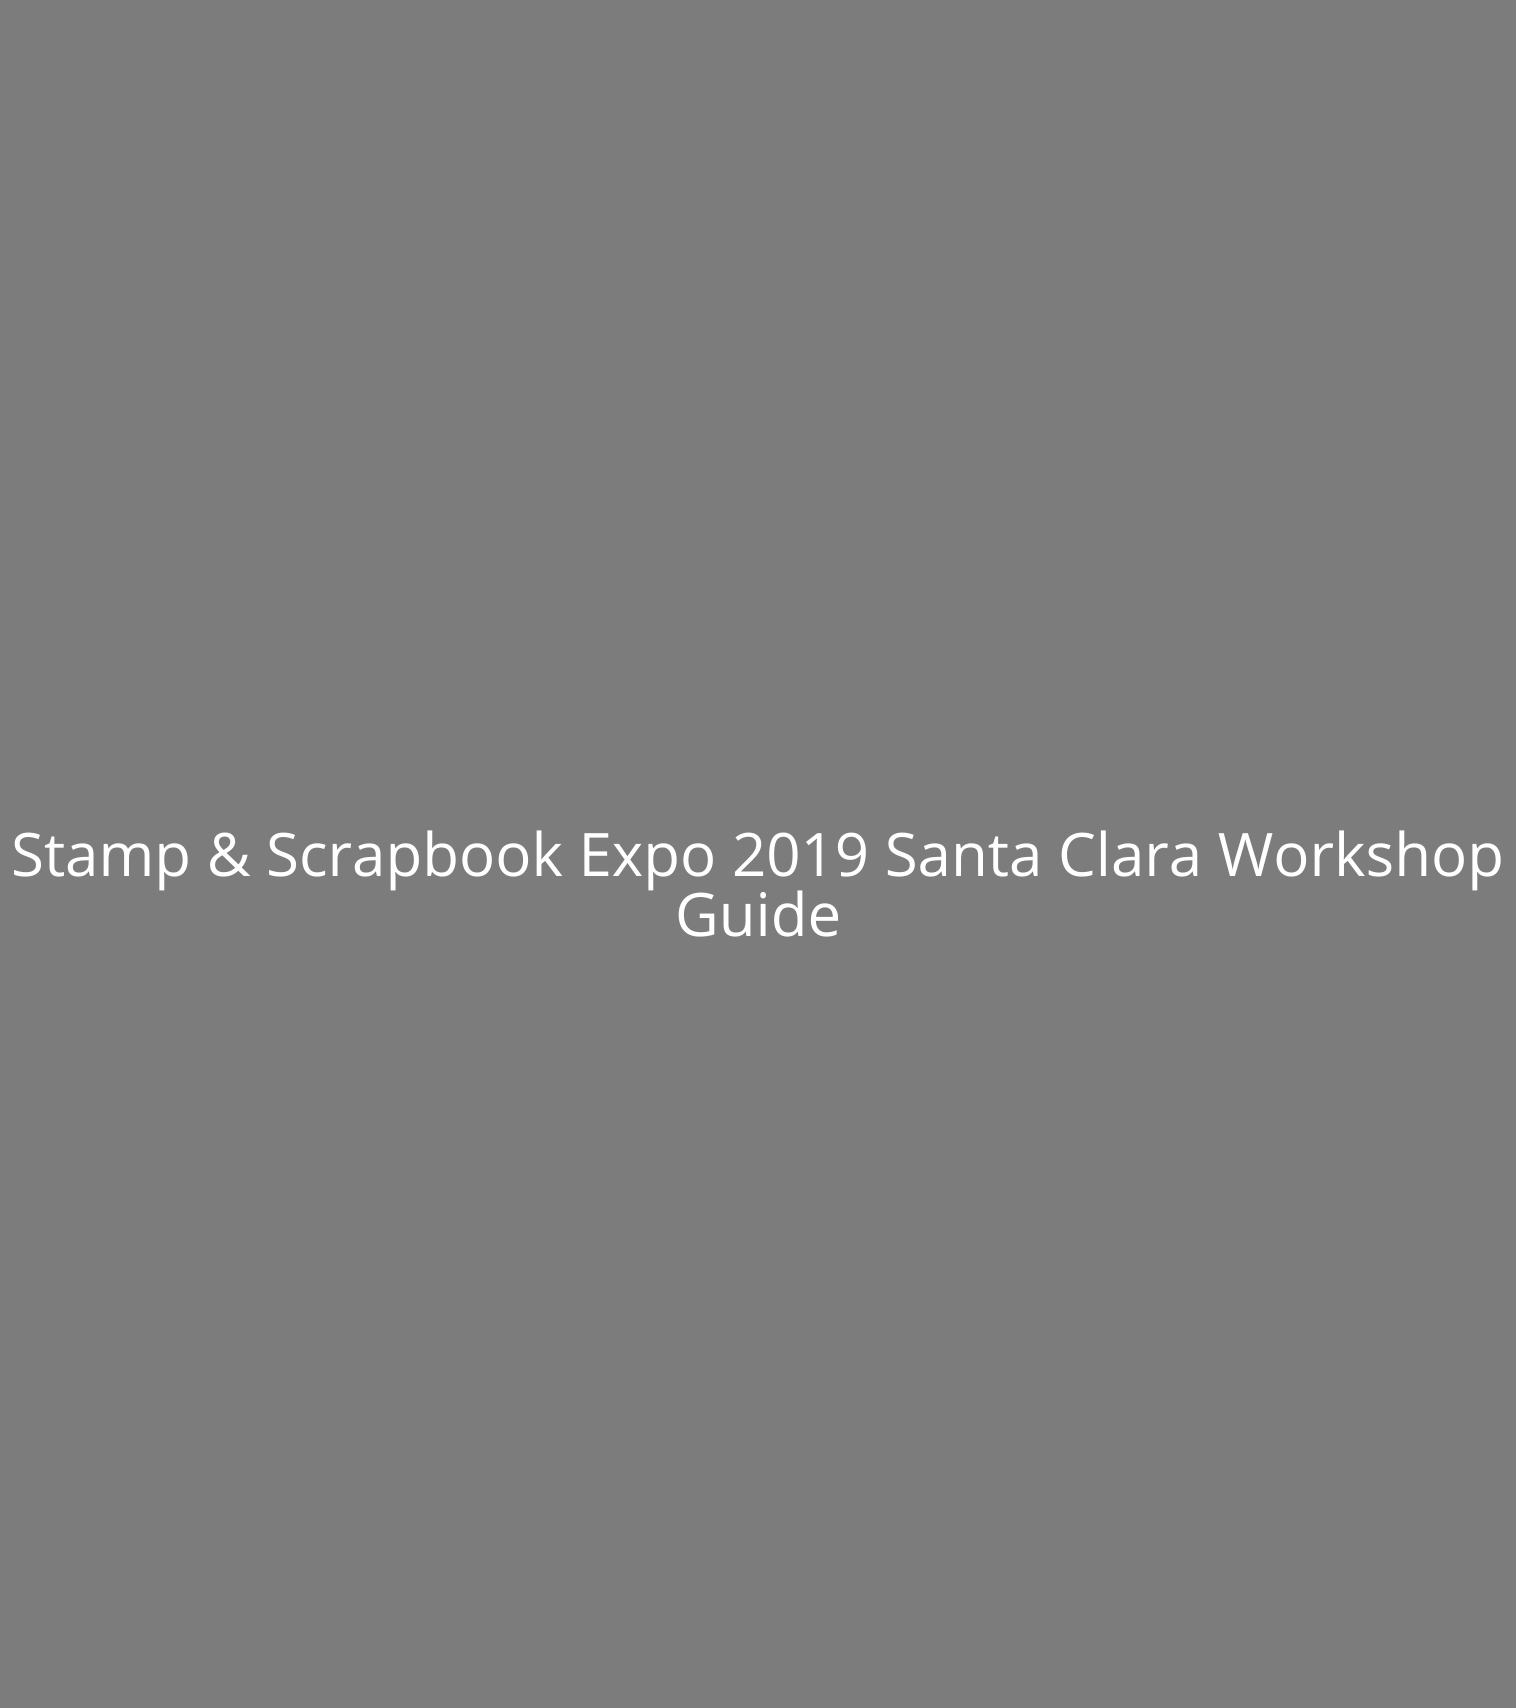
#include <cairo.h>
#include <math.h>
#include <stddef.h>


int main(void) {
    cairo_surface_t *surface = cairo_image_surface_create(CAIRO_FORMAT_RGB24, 1516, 1708);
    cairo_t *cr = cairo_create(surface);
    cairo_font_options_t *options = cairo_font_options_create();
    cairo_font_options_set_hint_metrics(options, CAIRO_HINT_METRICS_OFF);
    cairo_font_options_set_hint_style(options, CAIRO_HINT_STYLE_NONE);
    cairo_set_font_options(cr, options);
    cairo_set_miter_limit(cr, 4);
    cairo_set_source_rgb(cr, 0.486, 0.486, 0.486);
    cairo_paint(cr);
    cairo_select_font_face(cr, "Open Sans", CAIRO_FONT_SLANT_NORMAL, CAIRO_FONT_WEIGHT_NORMAL);
    cairo_set_font_size(cr, 60);
    cairo_set_source_rgb(cr, 1, 1, 1);
    cairo_move_to(cr, 11, 876);
    cairo_show_text(cr, "Stamp & Scrapbook Expo 2019 Santa Clara Workshop");
    cairo_move_to(cr, 675, 936);
    cairo_show_text(cr, "Guide");
    cairo_surface_write_to_png(surface, "page.png");
    cairo_font_options_destroy(options);
    cairo_destroy(cr);
    cairo_surface_destroy(surface);
    return 0;
}
